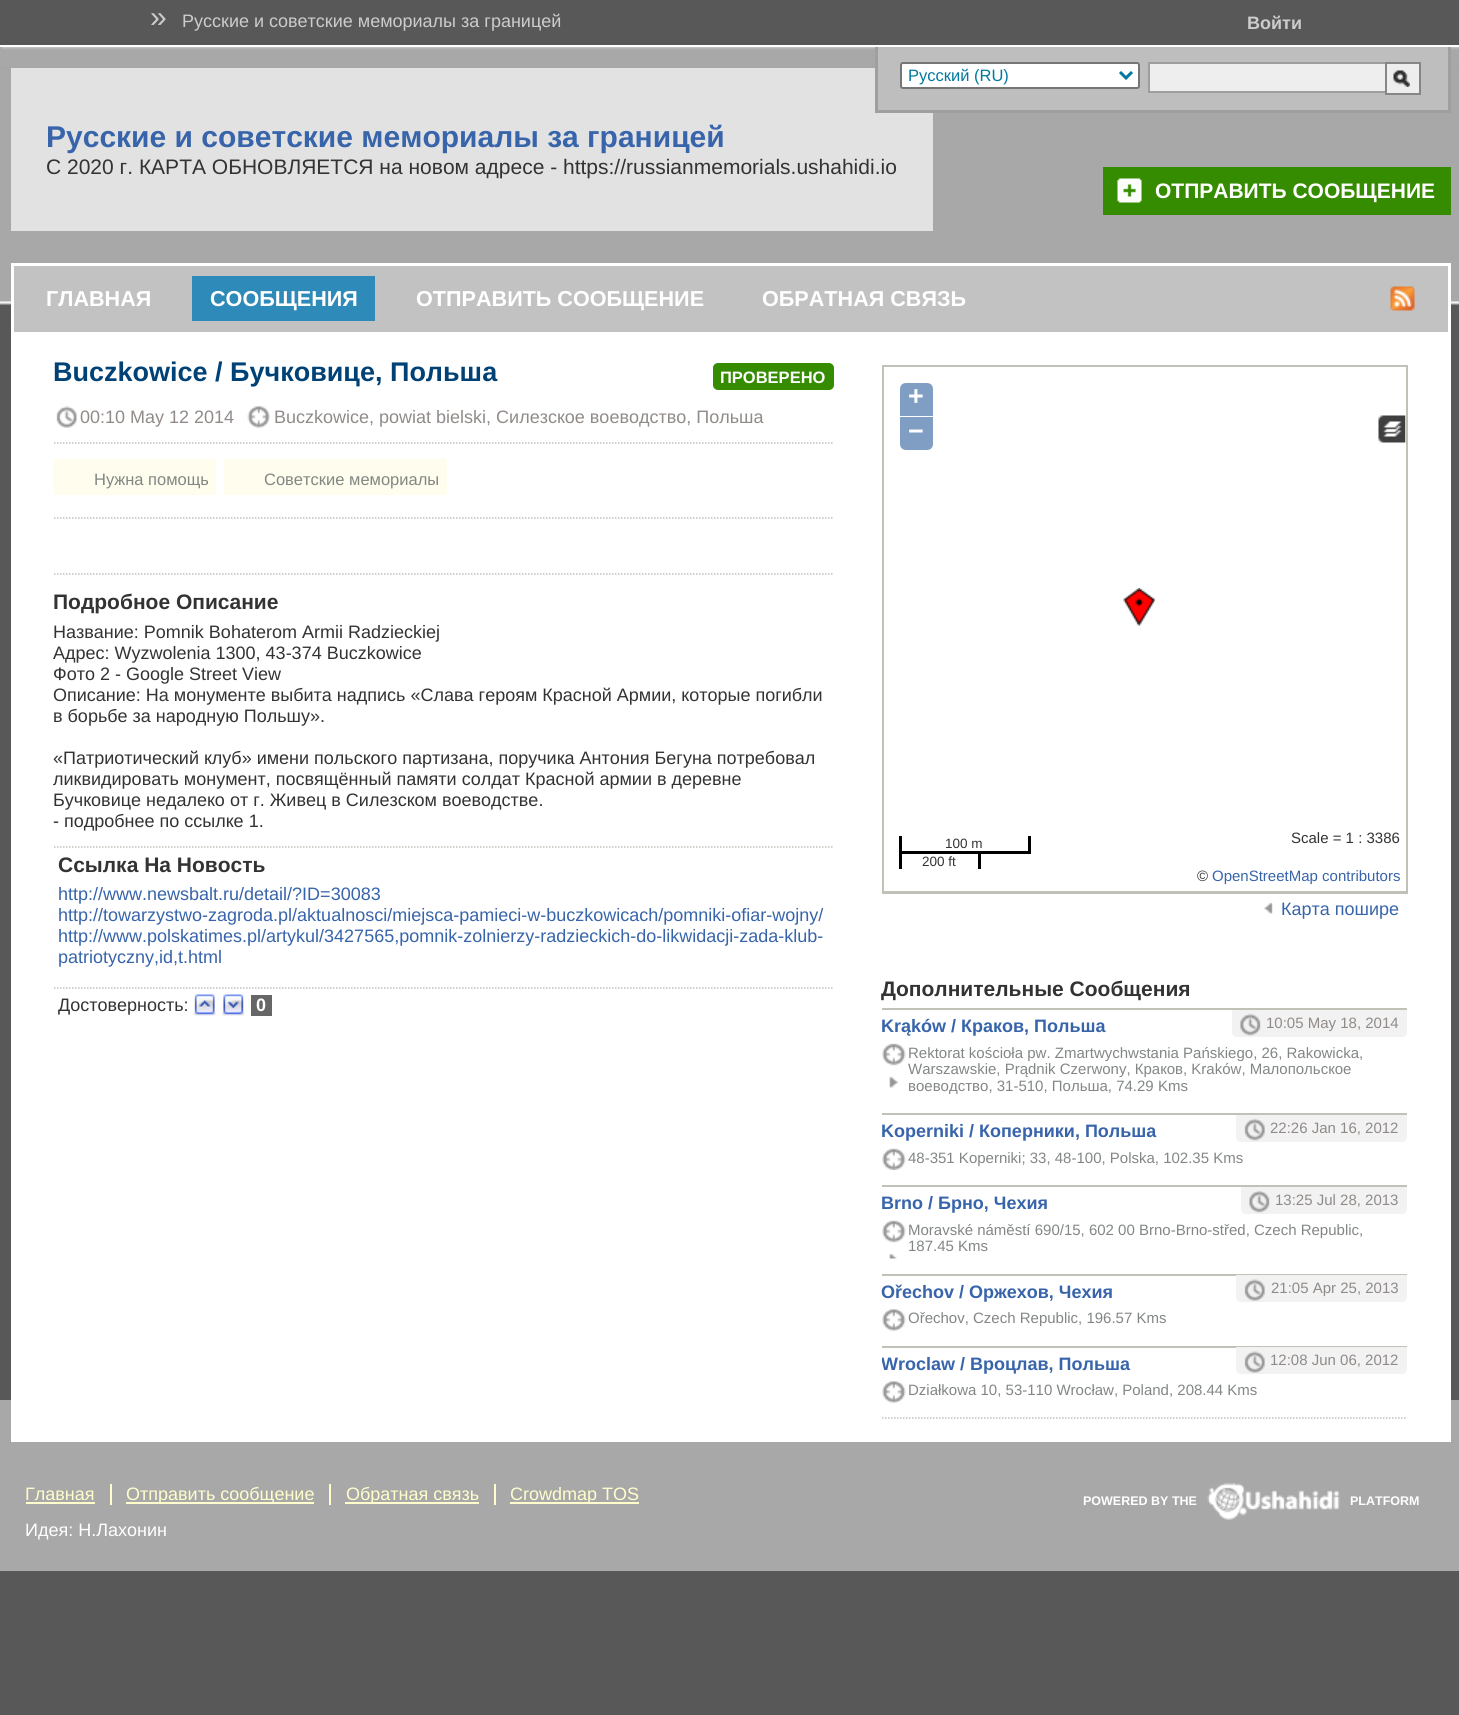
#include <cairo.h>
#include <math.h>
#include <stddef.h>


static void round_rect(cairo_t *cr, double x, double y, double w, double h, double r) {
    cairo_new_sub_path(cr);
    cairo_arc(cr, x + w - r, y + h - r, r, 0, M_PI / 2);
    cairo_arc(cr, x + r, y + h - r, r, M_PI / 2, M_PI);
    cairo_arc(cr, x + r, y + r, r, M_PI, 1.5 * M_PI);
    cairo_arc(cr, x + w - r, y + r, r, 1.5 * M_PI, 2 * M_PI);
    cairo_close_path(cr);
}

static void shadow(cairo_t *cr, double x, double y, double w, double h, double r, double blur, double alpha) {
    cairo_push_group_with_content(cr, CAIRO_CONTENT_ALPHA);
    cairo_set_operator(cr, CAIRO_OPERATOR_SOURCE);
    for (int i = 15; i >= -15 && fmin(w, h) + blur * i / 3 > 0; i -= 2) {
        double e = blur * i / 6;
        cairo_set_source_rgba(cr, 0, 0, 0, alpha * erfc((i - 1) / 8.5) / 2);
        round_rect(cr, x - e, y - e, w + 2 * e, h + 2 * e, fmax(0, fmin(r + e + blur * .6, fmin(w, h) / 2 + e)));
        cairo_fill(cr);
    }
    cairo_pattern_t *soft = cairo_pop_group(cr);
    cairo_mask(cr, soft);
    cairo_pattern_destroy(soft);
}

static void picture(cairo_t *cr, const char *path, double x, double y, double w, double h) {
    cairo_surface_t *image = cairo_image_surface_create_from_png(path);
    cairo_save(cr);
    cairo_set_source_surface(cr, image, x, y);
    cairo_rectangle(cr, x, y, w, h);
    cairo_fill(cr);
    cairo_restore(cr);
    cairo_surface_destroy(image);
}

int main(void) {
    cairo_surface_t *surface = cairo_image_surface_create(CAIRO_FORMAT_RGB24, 1459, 1715);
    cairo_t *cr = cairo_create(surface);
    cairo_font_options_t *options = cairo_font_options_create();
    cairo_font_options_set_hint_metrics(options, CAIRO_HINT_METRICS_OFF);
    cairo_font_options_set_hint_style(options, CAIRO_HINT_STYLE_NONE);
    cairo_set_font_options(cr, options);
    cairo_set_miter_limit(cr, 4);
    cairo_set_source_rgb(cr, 0.345, 0.345, 0.345);
    cairo_paint(cr);
    picture(cr, "img1.png", 0, 47, 1459, 262);
    cairo_set_source_rgb(cr, 0.8, 0.8, 0.8);
    shadow(cr, 2, 2, 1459, 46, 0, 1, 1);
    cairo_set_source_rgb(cr, 0.345, 0.345, 0.345);
    cairo_rectangle(cr, 0, 0, 1459, 45);
    cairo_fill(cr);
    cairo_set_source_rgb(cr, 1, 1, 1);
    cairo_rectangle(cr, 0, 45, 1459, 2);
    cairo_fill(cr);
    cairo_select_font_face(cr, "Liberation Sans", CAIRO_FONT_SLANT_NORMAL, CAIRO_FONT_WEIGHT_NORMAL);
    cairo_set_font_size(cr, 30);
    cairo_set_source_rgb(cr, 0.8, 0.8, 0.8);
    cairo_move_to(cr, 150, 27);
    cairo_show_text(cr, "»");
    cairo_set_font_size(cr, 18);
    cairo_move_to(cr, 182, 27);
    cairo_show_text(cr, "Русские и советские мемориалы за границей");
    cairo_select_font_face(cr, "Liberation Sans", CAIRO_FONT_SLANT_NORMAL, CAIRO_FONT_WEIGHT_BOLD);
    cairo_move_to(cr, 1247, 29);
    cairo_show_text(cr, "Войти");
    cairo_set_source_rgb(cr, 0.886, 0.886, 0.886);
    cairo_rectangle(cr, 11, 68, 922, 163);
    cairo_fill(cr);
    cairo_set_source_rgb(cr, 0.745, 0.745, 0.745);
    cairo_rectangle(cr, 878, 47, 570, 63);
    cairo_fill(cr);
    cairo_set_source_rgb(cr, 0.624, 0.624, 0.624);
    cairo_rectangle(cr, 1448, 47, 3, 66);
    cairo_fill(cr);
    cairo_rectangle(cr, 875, 110, 576, 3);
    cairo_fill(cr);
    cairo_rectangle(cr, 875, 47, 3, 66);
    cairo_fill(cr);
    cairo_set_source_rgb(cr, 1, 1, 1);
    round_rect(cr, 901, 63, 238, 25, 2);
    cairo_fill_preserve(cr);
    cairo_set_source_rgb(cr, 0.463, 0.463, 0.463);
    cairo_stroke(cr);
    cairo_new_path(cr);
    cairo_move_to(cr, 1120, 72);
    cairo_line_to(cr, 1126, 78);
    cairo_line_to(cr, 1132, 72);
    cairo_set_source_rgb(cr, 0, 0.471, 0.624);
    cairo_set_line_width(cr, 3);
    cairo_stroke(cr);
    cairo_select_font_face(cr, "Liberation Sans", CAIRO_FONT_SLANT_NORMAL, CAIRO_FONT_WEIGHT_NORMAL);
    cairo_set_font_size(cr, 16.5);
    cairo_move_to(cr, 908, 81);
    cairo_show_text(cr, "Русский (RU)");
    cairo_set_source_rgb(cr, 0.933, 0.933, 0.933);
    cairo_rectangle(cr, 1150, 64, 235, 27);
    cairo_fill(cr);
    cairo_rectangle(cr, 1149, 63, 241, 29);
    cairo_set_source_rgb(cr, 0.62, 0.62, 0.62);
    cairo_set_line_width(cr, 2);
    cairo_stroke(cr);
    cairo_set_source_rgb(cr, 0.933, 0.933, 0.933);
    cairo_rectangle(cr, 1387, 64, 32, 29);
    cairo_fill(cr);
    picture(cr, "img2.png", 1393, 70, 17, 17);
    cairo_rectangle(cr, 1386, 63, 34, 31);
    cairo_set_source_rgb(cr, 0.525, 0.525, 0.525);
    cairo_stroke(cr);
    cairo_select_font_face(cr, "Liberation Sans", CAIRO_FONT_SLANT_NORMAL, CAIRO_FONT_WEIGHT_BOLD);
    cairo_set_font_size(cr, 30);
    cairo_set_source_rgb(cr, 0.216, 0.392, 0.667);
    cairo_move_to(cr, 46, 147);
    cairo_show_text(cr, "Русские и советские мемориалы за границей");
    cairo_select_font_face(cr, "Liberation Sans", CAIRO_FONT_SLANT_NORMAL, CAIRO_FONT_WEIGHT_NORMAL);
    cairo_set_font_size(cr, 21);
    cairo_set_source_rgb(cr, 0.2, 0.2, 0.2);
    cairo_move_to(cr, 46, 174);
    cairo_show_text(cr, "С 2020 г. КАРТА ОБНОВЛЯЕТСЯ на новом адресе - https://russianmemorials.ushahidi.io");
    cairo_set_source_rgb(cr, 0.212, 0.549, 0);
    cairo_rectangle(cr, 1103, 167, 348, 48);
    cairo_fill(cr);
    picture(cr, "img3.png", 1117, 178, 25, 25);
    cairo_select_font_face(cr, "Liberation Sans", CAIRO_FONT_SLANT_NORMAL, CAIRO_FONT_WEIGHT_BOLD);
    cairo_set_source_rgb(cr, 1, 1, 1);
    cairo_move_to(cr, 1155, 198);
    cairo_show_text(cr, "ОТПРАВИТЬ СООБЩЕНИЕ");
    cairo_set_source_rgb(cr, 0.659, 0.659, 0.659);
    cairo_rectangle(cr, 0, 1400, 1459, 171);
    cairo_fill(cr);
    cairo_set_source_rgb(cr, 1, 1, 1);
    cairo_rectangle(cr, 11, 335, 1440, 1107);
    cairo_fill(cr);
    cairo_set_source_rgb(cr, 0.761, 0.761, 0.761);
    cairo_rectangle(cr, 12.5, 264.5, 1437, 69);
    cairo_fill_preserve(cr);
    cairo_set_source_rgb(cr, 1, 1, 1);
    cairo_set_line_width(cr, 3);
    cairo_stroke(cr);
    cairo_set_font_size(cr, 21.6);
    cairo_move_to(cr, 46, 306);
    cairo_show_text(cr, "ГЛАВНАЯ");
    cairo_set_source_rgb(cr, 0.18, 0.541, 0.722);
    cairo_rectangle(cr, 192, 276, 183, 45);
    cairo_fill(cr);
    cairo_set_source_rgb(cr, 1, 1, 1);
    cairo_move_to(cr, 210, 306);
    cairo_show_text(cr, "СООБЩЕНИЯ");
    cairo_move_to(cr, 416, 306);
    cairo_show_text(cr, "ОТПРАВИТЬ СООБЩЕНИЕ");
    cairo_move_to(cr, 762, 306);
    cairo_show_text(cr, "ОБРАТНАЯ СВЯЗЬ");
    picture(cr, "img4.png", 1390, 286, 25, 25);
    cairo_set_font_size(cr, 27);
    cairo_set_source_rgb(cr, 0, 0.259, 0.463);
    cairo_move_to(cr, 53, 381);
    cairo_show_text(cr, "Buczkowice / Бучковице, Польша");
    cairo_set_source_rgb(cr, 0.212, 0.549, 0);
    round_rect(cr, 713, 363, 121, 27, 5);
    cairo_fill(cr);
    cairo_set_font_size(cr, 16.5);
    cairo_set_source_rgb(cr, 1, 1, 1);
    cairo_move_to(cr, 720, 383);
    cairo_show_text(cr, "ПРОВЕРЕНО");
    picture(cr, "img5.png", 56, 406, 21, 22);
    cairo_select_font_face(cr, "Liberation Sans", CAIRO_FONT_SLANT_NORMAL, CAIRO_FONT_WEIGHT_NORMAL);
    cairo_set_font_size(cr, 18);
    cairo_set_source_rgb(cr, 0.565, 0.545, 0.533);
    cairo_move_to(cr, 80, 423);
    cairo_show_text(cr, "00:10 May 12 2014");
    picture(cr, "img6.png", 247, 406, 24, 22);
    cairo_move_to(cr, 274, 423);
    cairo_show_text(cr, "Buczkowice, powiat bielski, Силезское воеводство, Польша");
    cairo_new_path(cr);
    cairo_move_to(cr, 54, 443);
    cairo_line_to(cr, 834, 443);
    cairo_set_source_rgb(cr, 0.753, 0.761, 0.722);
    cairo_set_line_width(cr, 1.5);
    cairo_set_dash(cr, (double[]){1.5, 1.5}, 2, 0);
    cairo_stroke(cr);
    cairo_new_path(cr);
    cairo_move_to(cr, 54, 518);
    cairo_line_to(cr, 834, 518);
    cairo_stroke(cr);
    cairo_set_source_rgb(cr, 1, 0.992, 0.929);
    cairo_rectangle(cr, 54, 459, 162, 36);
    cairo_fill(cr);
    cairo_set_font_size(cr, 16.5);
    cairo_set_source_rgb(cr, 0.51, 0.529, 0.518);
    cairo_move_to(cr, 94, 485);
    cairo_show_text(cr, "Нужна помощь");
    cairo_set_source_rgb(cr, 1, 0.992, 0.929);
    cairo_rectangle(cr, 224, 459, 223, 36);
    cairo_fill(cr);
    cairo_set_source_rgb(cr, 0.51, 0.529, 0.518);
    cairo_move_to(cr, 264, 485);
    cairo_show_text(cr, "Советские мемориалы");
    cairo_new_path(cr);
    cairo_move_to(cr, 54, 574);
    cairo_line_to(cr, 834, 574);
    cairo_set_source_rgb(cr, 0.753, 0.761, 0.722);
    cairo_stroke(cr);
    cairo_select_font_face(cr, "Liberation Sans", CAIRO_FONT_SLANT_NORMAL, CAIRO_FONT_WEIGHT_BOLD);
    cairo_set_font_size(cr, 21);
    cairo_set_source_rgb(cr, 0.2, 0.2, 0.2);
    cairo_move_to(cr, 53, 609);
    cairo_show_text(cr, "Подробное Описание");
    cairo_select_font_face(cr, "Liberation Sans", CAIRO_FONT_SLANT_NORMAL, CAIRO_FONT_WEIGHT_NORMAL);
    cairo_set_font_size(cr, 18);
    cairo_move_to(cr, 53, 638);
    cairo_show_text(cr, "Название: Pomnik Bohaterom Armii Radzieckiej");
    cairo_move_to(cr, 53, 659);
    cairo_show_text(cr, "Адрес: Wyzwolenia 1300, 43-374 Buczkowice");
    cairo_move_to(cr, 53, 680);
    cairo_show_text(cr, "Фото 2 - Google Street View");
    cairo_move_to(cr, 53, 701);
    cairo_show_text(cr, "Описание: На монументе выбита надпись «Слава героям Красной Армии, которые погибли");
    cairo_move_to(cr, 53, 722);
    cairo_show_text(cr, "в борьбе за народную Польшу».");
    cairo_move_to(cr, 53, 764);
    cairo_show_text(cr, "«Патриотический клуб» имени польского партизана, поручика Антония Бегуна потребовал");
    cairo_move_to(cr, 53, 785);
    cairo_show_text(cr, "ликвидировать монумент, посвящённый памяти солдат Красной армии в деревне");
    cairo_move_to(cr, 53, 806);
    cairo_show_text(cr, "Бучковице недалеко от г. Живец в Силезском воеводстве.");
    cairo_move_to(cr, 53, 827);
    cairo_show_text(cr, "- подробнее по ссылке 1.");
    cairo_new_path(cr);
    cairo_move_to(cr, 54, 847);
    cairo_line_to(cr, 834, 847);
    cairo_set_source_rgb(cr, 0.753, 0.761, 0.722);
    cairo_stroke(cr);
    cairo_select_font_face(cr, "Liberation Sans", CAIRO_FONT_SLANT_NORMAL, CAIRO_FONT_WEIGHT_BOLD);
    cairo_set_font_size(cr, 21);
    cairo_set_source_rgb(cr, 0.2, 0.2, 0.2);
    cairo_move_to(cr, 58, 872);
    cairo_show_text(cr, "Ссылка На Новость");
    cairo_select_font_face(cr, "Liberation Sans", CAIRO_FONT_SLANT_NORMAL, CAIRO_FONT_WEIGHT_NORMAL);
    cairo_set_font_size(cr, 18);
    cairo_set_source_rgb(cr, 0.216, 0.392, 0.667);
    cairo_move_to(cr, 58, 900);
    cairo_show_text(cr, "http://www.newsbalt.ru/detail/?ID=30083");
    cairo_move_to(cr, 58, 921);
    cairo_show_text(cr, "http://towarzystwo-zagroda.pl/aktualnosci/miejsca-pamieci-w-buczkowicach/pomniki-ofiar-wojny/");
    cairo_move_to(cr, 58, 942);
    cairo_show_text(cr, "http://www.polskatimes.pl/artykul/3427565,pomnik-zolnierzy-radzieckich-do-likwidacji-zada-klub-");
    cairo_move_to(cr, 58, 963);
    cairo_show_text(cr, "patriotyczny,id,t.html");
    cairo_new_path(cr);
    cairo_move_to(cr, 54, 988);
    cairo_line_to(cr, 834, 988);
    cairo_set_source_rgb(cr, 0.753, 0.761, 0.722);
    cairo_stroke(cr);
    cairo_set_source_rgb(cr, 0.2, 0.2, 0.2);
    cairo_move_to(cr, 58, 1011);
    cairo_show_text(cr, "Достоверность:");
    picture(cr, "img7.png", 193, 994, 23, 22);
    picture(cr, "img8.png", 222, 994, 23, 22);
    cairo_set_source_rgb(cr, 0.4, 0.4, 0.4);
    cairo_rectangle(cr, 251, 995, 21, 21);
    cairo_fill(cr);
    cairo_select_font_face(cr, "Liberation Sans", CAIRO_FONT_SLANT_NORMAL, CAIRO_FONT_WEIGHT_BOLD);
    cairo_set_source_rgb(cr, 1, 1, 1);
    cairo_move_to(cr, 256, 1011);
    cairo_show_text(cr, "0");
    cairo_set_source_rgb(cr, 0.753, 0.761, 0.722);
    cairo_rectangle(cr, 882, 365, 525, 2);
    cairo_fill(cr);
    cairo_rectangle(cr, 1406, 365, 2, 529);
    cairo_fill(cr);
    cairo_rectangle(cr, 882, 891, 525, 3);
    cairo_fill(cr);
    cairo_rectangle(cr, 882, 365, 2, 529);
    cairo_fill(cr);
    cairo_set_source_rgb(cr, 0.502, 0.62, 0.769);
    cairo_new_path(cr);
    cairo_move_to(cr, 906, 383);
    cairo_line_to(cr, 927, 383);
    cairo_curve_to(cr, 930.5, 383, 933, 385.5, 933, 389);
    cairo_line_to(cr, 933, 416);
    cairo_line_to(cr, 900, 416);
    cairo_line_to(cr, 900, 389);
    cairo_curve_to(cr, 900, 385.5, 902.5, 383, 906, 383);
    cairo_close_path(cr);
    cairo_fill(cr);
    cairo_set_font_size(cr, 27);
    cairo_set_source_rgb(cr, 1, 1, 1);
    cairo_move_to(cr, 908, 405);
    cairo_show_text(cr, "+");
    cairo_set_source_rgb(cr, 0.502, 0.62, 0.769);
    cairo_new_path(cr);
    cairo_move_to(cr, 900, 417);
    cairo_line_to(cr, 933, 417);
    cairo_line_to(cr, 933, 444);
    cairo_curve_to(cr, 933, 447.5, 930.5, 450, 927, 450);
    cairo_line_to(cr, 906, 450);
    cairo_curve_to(cr, 902.5, 450, 900, 447.5, 900, 444);
    cairo_close_path(cr);
    cairo_fill(cr);
    cairo_set_source_rgb(cr, 1, 1, 1);
    cairo_move_to(cr, 908, 440);
    cairo_show_text(cr, "−");
    picture(cr, "img9.png", 1378, 415, 28, 28);
    picture(cr, "img10.png", 1123, 588, 32, 38);
    cairo_set_source_rgb(cr, 0, 0, 0);
    cairo_rectangle(cr, 1028, 836, 3, 18);
    cairo_fill(cr);
    cairo_rectangle(cr, 899, 851, 132, 3);
    cairo_fill(cr);
    cairo_rectangle(cr, 899, 836, 3, 33);
    cairo_fill(cr);
    cairo_select_font_face(cr, "Liberation Sans", CAIRO_FONT_SLANT_NORMAL, CAIRO_FONT_WEIGHT_NORMAL);
    cairo_set_font_size(cr, 13.5);
    cairo_set_source_rgb(cr, 0.2, 0.2, 0.2);
    cairo_move_to(cr, 945, 848);
    cairo_show_text(cr, "100 m");
    cairo_set_source_rgb(cr, 0, 0, 0);
    cairo_rectangle(cr, 978, 851, 3, 18);
    cairo_fill(cr);
    cairo_set_source_rgb(cr, 0.2, 0.2, 0.2);
    cairo_move_to(cr, 922, 866);
    cairo_show_text(cr, "200 ft");
    cairo_set_font_size(cr, 15);
    cairo_move_to(cr, 1291, 843);
    cairo_show_text(cr, "Scale = 1 : 3386");
    cairo_move_to(cr, 1197, 881);
    cairo_show_text(cr, "©");
    cairo_set_source_rgb(cr, 0.216, 0.392, 0.667);
    cairo_move_to(cr, 1212, 881);
    cairo_show_text(cr, "OpenStreetMap contributors");
    picture(cr, "img11.png", 1264, 902, 9, 12);
    cairo_set_font_size(cr, 18);
    cairo_move_to(cr, 1281, 915);
    cairo_show_text(cr, "Карта пошире");
    cairo_new_path(cr);
    cairo_move_to(cr, 882, 1418);
    cairo_line_to(cr, 1407, 1418);
    cairo_set_source_rgb(cr, 0.753, 0.761, 0.722);
    cairo_stroke(cr);
    cairo_select_font_face(cr, "Liberation Sans", CAIRO_FONT_SLANT_NORMAL, CAIRO_FONT_WEIGHT_BOLD);
    cairo_set_font_size(cr, 21);
    cairo_set_source_rgb(cr, 0.2, 0.2, 0.2);
    cairo_move_to(cr, 881, 996);
    cairo_show_text(cr, "Дополнительные Cообщения");
    cairo_set_source_rgb(cr, 0.753, 0.761, 0.722);
    cairo_rectangle(cr, 882, 1008, 525, 2);
    cairo_fill(cr);
    cairo_set_font_size(cr, 18);
    cairo_set_source_rgb(cr, 0.216, 0.392, 0.667);
    cairo_move_to(cr, 881, 1032);
    cairo_show_text(cr, "Krąków / Краков, Польша");
    cairo_set_source_rgb(cr, 0.949, 0.949, 0.949);
    cairo_new_path(cr);
    cairo_move_to(cr, 1232, 1010);
    cairo_line_to(cr, 1407, 1010);
    cairo_line_to(cr, 1407, 1032);
    cairo_curve_to(cr, 1407, 1035, 1405, 1037, 1402, 1037);
    cairo_line_to(cr, 1237, 1037);
    cairo_curve_to(cr, 1234, 1037, 1232, 1035, 1232, 1032);
    cairo_close_path(cr);
    cairo_fill(cr);
    picture(cr, "img12.png", 1240, 1013, 21, 23);
    cairo_select_font_face(cr, "Liberation Sans", CAIRO_FONT_SLANT_NORMAL, CAIRO_FONT_WEIGHT_NORMAL);
    cairo_set_font_size(cr, 15);
    cairo_set_source_rgb(cr, 0.565, 0.545, 0.533);
    cairo_move_to(cr, 1266, 1028);
    cairo_show_text(cr, "10:05 May 18, 2014");
    picture(cr, "img13.png", 882, 1043, 24, 45);
    cairo_set_source_rgb(cr, 0.51, 0.529, 0.518);
    cairo_move_to(cr, 908, 1058);
    cairo_show_text(cr, "Rektorat kościoła pw. Zmartwychwstania Pańskiego, 26, Rakowicka,");
    cairo_move_to(cr, 908, 1074);
    cairo_show_text(cr, "Warszawskie, Prądnik Czerwony, Краков, Kraków, Малопольское");
    cairo_move_to(cr, 908, 1091);
    cairo_show_text(cr, "воеводство, 31-510, Польша, 74.29 Kms");
    cairo_set_source_rgb(cr, 0.753, 0.761, 0.722);
    cairo_rectangle(cr, 882, 1113, 525, 2);
    cairo_fill(cr);
    cairo_select_font_face(cr, "Liberation Sans", CAIRO_FONT_SLANT_NORMAL, CAIRO_FONT_WEIGHT_BOLD);
    cairo_set_font_size(cr, 18);
    cairo_set_source_rgb(cr, 0.216, 0.392, 0.667);
    cairo_move_to(cr, 881, 1137);
    cairo_show_text(cr, "Koperniki / Коперники, Польша");
    cairo_set_source_rgb(cr, 0.949, 0.949, 0.949);
    cairo_new_path(cr);
    cairo_move_to(cr, 1236, 1115);
    cairo_line_to(cr, 1407, 1115);
    cairo_line_to(cr, 1407, 1137);
    cairo_curve_to(cr, 1407, 1140, 1405, 1142, 1402, 1142);
    cairo_line_to(cr, 1241, 1142);
    cairo_curve_to(cr, 1238, 1142, 1236, 1140, 1236, 1137);
    cairo_close_path(cr);
    cairo_fill(cr);
    picture(cr, "img14.png", 1244, 1118, 21, 23);
    cairo_select_font_face(cr, "Liberation Sans", CAIRO_FONT_SLANT_NORMAL, CAIRO_FONT_WEIGHT_NORMAL);
    cairo_set_font_size(cr, 15);
    cairo_set_source_rgb(cr, 0.565, 0.545, 0.533);
    cairo_move_to(cr, 1270, 1133);
    cairo_show_text(cr, "22:26 Jan 16, 2012");
    picture(cr, "img15.png", 882, 1148, 24, 22);
    cairo_set_source_rgb(cr, 0.51, 0.529, 0.518);
    cairo_move_to(cr, 908, 1163);
    cairo_show_text(cr, "48-351 Koperniki; 33, 48-100, Polska, 102.35 Kms");
    cairo_set_source_rgb(cr, 0.753, 0.761, 0.722);
    cairo_rectangle(cr, 882, 1185, 525, 2);
    cairo_fill(cr);
    cairo_select_font_face(cr, "Liberation Sans", CAIRO_FONT_SLANT_NORMAL, CAIRO_FONT_WEIGHT_BOLD);
    cairo_set_font_size(cr, 18);
    cairo_set_source_rgb(cr, 0.216, 0.392, 0.667);
    cairo_move_to(cr, 881, 1209);
    cairo_show_text(cr, "Brno / Брно, Чехия");
    cairo_set_source_rgb(cr, 0.949, 0.949, 0.949);
    cairo_new_path(cr);
    cairo_move_to(cr, 1241, 1187);
    cairo_line_to(cr, 1407, 1187);
    cairo_line_to(cr, 1407, 1209);
    cairo_curve_to(cr, 1407, 1212, 1405, 1214, 1402, 1214);
    cairo_line_to(cr, 1246, 1214);
    cairo_curve_to(cr, 1243, 1214, 1241, 1212, 1241, 1209);
    cairo_close_path(cr);
    cairo_fill(cr);
    picture(cr, "img12.png", 1249, 1190, 21, 23);
    cairo_select_font_face(cr, "Liberation Sans", CAIRO_FONT_SLANT_NORMAL, CAIRO_FONT_WEIGHT_NORMAL);
    cairo_set_font_size(cr, 15);
    cairo_set_source_rgb(cr, 0.565, 0.545, 0.533);
    cairo_move_to(cr, 1275, 1205);
    cairo_show_text(cr, "13:25 Jul 28, 2013");
    picture(cr, "img16.png", 882, 1220, 24, 39);
    cairo_set_source_rgb(cr, 0.51, 0.529, 0.518);
    cairo_move_to(cr, 908, 1235);
    cairo_show_text(cr, "Moravské náměstí 690/15, 602 00 Brno-Brno-střed, Czech Republic,");
    cairo_move_to(cr, 908, 1251);
    cairo_show_text(cr, "187.45 Kms");
    cairo_set_source_rgb(cr, 0.753, 0.761, 0.722);
    cairo_rectangle(cr, 882, 1274, 525, 2);
    cairo_fill(cr);
    cairo_select_font_face(cr, "Liberation Sans", CAIRO_FONT_SLANT_NORMAL, CAIRO_FONT_WEIGHT_BOLD);
    cairo_set_font_size(cr, 18);
    cairo_set_source_rgb(cr, 0.216, 0.392, 0.667);
    cairo_move_to(cr, 881, 1298);
    cairo_show_text(cr, "Ořechov / Оржехов, Чехия");
    cairo_set_source_rgb(cr, 0.949, 0.949, 0.949);
    cairo_new_path(cr);
    cairo_move_to(cr, 1236, 1275);
    cairo_line_to(cr, 1407, 1275);
    cairo_line_to(cr, 1407, 1297);
    cairo_curve_to(cr, 1407, 1300, 1405, 1302, 1402, 1302);
    cairo_line_to(cr, 1241, 1302);
    cairo_curve_to(cr, 1238, 1302, 1236, 1300, 1236, 1297);
    cairo_close_path(cr);
    cairo_fill(cr);
    picture(cr, "img17.png", 1244, 1279, 21, 22);
    cairo_select_font_face(cr, "Liberation Sans", CAIRO_FONT_SLANT_NORMAL, CAIRO_FONT_WEIGHT_NORMAL);
    cairo_set_font_size(cr, 15);
    cairo_set_source_rgb(cr, 0.565, 0.545, 0.533);
    cairo_move_to(cr, 1271, 1293);
    cairo_show_text(cr, "21:05 Apr 25, 2013");
    picture(cr, "img18.png", 882, 1309, 24, 22);
    cairo_set_source_rgb(cr, 0.51, 0.529, 0.518);
    cairo_move_to(cr, 908, 1323);
    cairo_show_text(cr, "Ořechov, Czech Republic, 196.57 Kms");
    cairo_set_source_rgb(cr, 0.753, 0.761, 0.722);
    cairo_rectangle(cr, 882, 1346, 525, 2);
    cairo_fill(cr);
    cairo_save(cr);
    cairo_rectangle(cr, 882, 1347, 525, 71);
    cairo_clip(cr);
    cairo_select_font_face(cr, "Liberation Sans", CAIRO_FONT_SLANT_NORMAL, CAIRO_FONT_WEIGHT_BOLD);
    cairo_set_font_size(cr, 18);
    cairo_set_source_rgb(cr, 0.216, 0.392, 0.667);
    cairo_move_to(cr, 881, 1370);
    cairo_show_text(cr, "Wroclaw / Вроцлав, Польша");
    cairo_restore(cr);
    cairo_set_source_rgb(cr, 0.949, 0.949, 0.949);
    cairo_new_path(cr);
    cairo_move_to(cr, 1236, 1347);
    cairo_line_to(cr, 1407, 1347);
    cairo_line_to(cr, 1407, 1369);
    cairo_curve_to(cr, 1407, 1372, 1405, 1374, 1402, 1374);
    cairo_line_to(cr, 1241, 1374);
    cairo_curve_to(cr, 1238, 1374, 1236, 1372, 1236, 1369);
    cairo_close_path(cr);
    cairo_fill(cr);
    picture(cr, "img17.png", 1244, 1351, 21, 22);
    cairo_set_source_rgb(cr, 0.565, 0.545, 0.533);
    cairo_move_to(cr, 1270, 1365);
    cairo_show_text(cr, "12:08 Jun 06, 2012");
    picture(cr, "img18.png", 882, 1381, 24, 22);
    cairo_set_source_rgb(cr, 0.51, 0.529, 0.518);
    cairo_move_to(cr, 908, 1395);
    cairo_show_text(cr, "Działkowa 10, 53-110 Wrocław, Poland, 208.44 Kms");
    cairo_set_font_size(cr, 18);
    cairo_set_source_rgb(cr, 1, 0.992, 0.8);
    cairo_move_to(cr, 25, 1500);
    cairo_show_text(cr, "Главная");
    cairo_rectangle(cr, 26, 1502, 69, 2);
    cairo_fill(cr);
    cairo_rectangle(cr, 126, 1502, 188, 2);
    cairo_fill(cr);
    cairo_move_to(cr, 126, 1500);
    cairo_show_text(cr, "Отправить сообщение");
    cairo_rectangle(cr, 110, 1484, 2, 21);
    cairo_fill(cr);
    cairo_rectangle(cr, 345, 1502, 134, 2);
    cairo_fill(cr);
    cairo_move_to(cr, 346, 1500);
    cairo_show_text(cr, "Обратная связь");
    cairo_rectangle(cr, 329, 1484, 2, 21);
    cairo_fill(cr);
    cairo_rectangle(cr, 510, 1502, 129, 2);
    cairo_fill(cr);
    cairo_move_to(cr, 510, 1500);
    cairo_show_text(cr, "Crowdmap TOS");
    cairo_rectangle(cr, 494, 1484, 2, 21);
    cairo_fill(cr);
    cairo_set_source_rgb(cr, 1, 1, 1);
    cairo_move_to(cr, 25, 1536);
    cairo_show_text(cr, "Идея: Н.Лахонин");
    cairo_select_font_face(cr, "Liberation Sans", CAIRO_FONT_SLANT_NORMAL, CAIRO_FONT_WEIGHT_BOLD);
    cairo_set_font_size(cr, 12.5);
    cairo_move_to(cr, 1083, 1505);
    cairo_show_text(cr, "POWERED BY THE");
    picture(cr, "img19.png", 1207, 1483, 133, 37);
    cairo_move_to(cr, 1350, 1505);
    cairo_show_text(cr, "PLATFORM");
    cairo_surface_write_to_png(surface, "page.png");
    cairo_font_options_destroy(options);
    cairo_destroy(cr);
    cairo_surface_destroy(surface);
    return 0;
}
